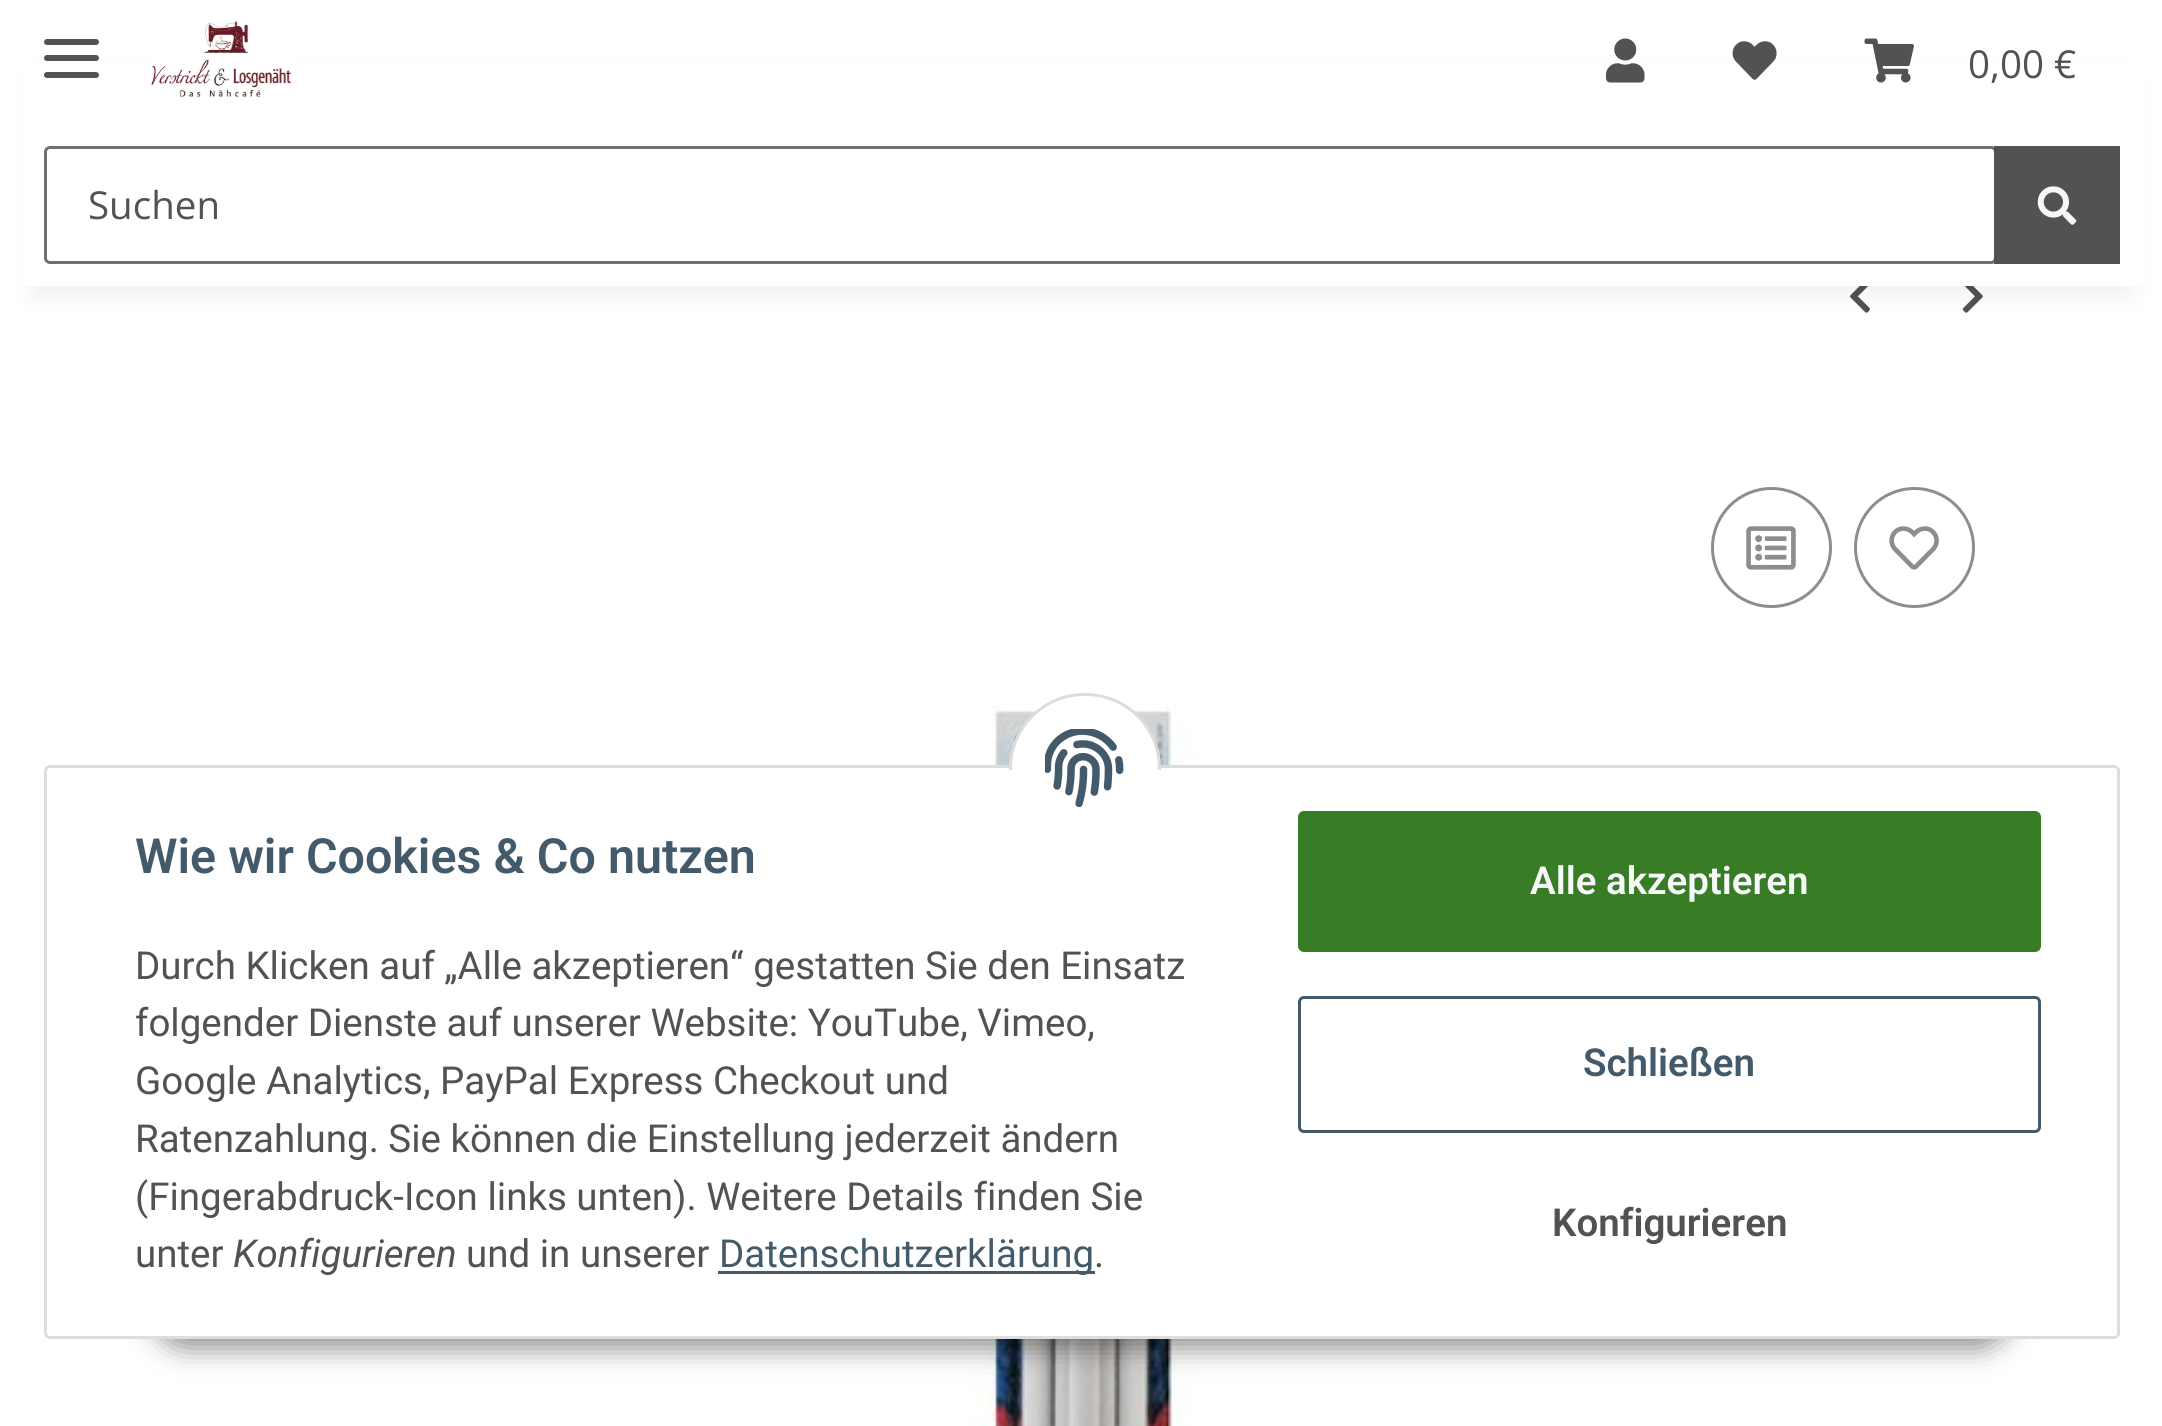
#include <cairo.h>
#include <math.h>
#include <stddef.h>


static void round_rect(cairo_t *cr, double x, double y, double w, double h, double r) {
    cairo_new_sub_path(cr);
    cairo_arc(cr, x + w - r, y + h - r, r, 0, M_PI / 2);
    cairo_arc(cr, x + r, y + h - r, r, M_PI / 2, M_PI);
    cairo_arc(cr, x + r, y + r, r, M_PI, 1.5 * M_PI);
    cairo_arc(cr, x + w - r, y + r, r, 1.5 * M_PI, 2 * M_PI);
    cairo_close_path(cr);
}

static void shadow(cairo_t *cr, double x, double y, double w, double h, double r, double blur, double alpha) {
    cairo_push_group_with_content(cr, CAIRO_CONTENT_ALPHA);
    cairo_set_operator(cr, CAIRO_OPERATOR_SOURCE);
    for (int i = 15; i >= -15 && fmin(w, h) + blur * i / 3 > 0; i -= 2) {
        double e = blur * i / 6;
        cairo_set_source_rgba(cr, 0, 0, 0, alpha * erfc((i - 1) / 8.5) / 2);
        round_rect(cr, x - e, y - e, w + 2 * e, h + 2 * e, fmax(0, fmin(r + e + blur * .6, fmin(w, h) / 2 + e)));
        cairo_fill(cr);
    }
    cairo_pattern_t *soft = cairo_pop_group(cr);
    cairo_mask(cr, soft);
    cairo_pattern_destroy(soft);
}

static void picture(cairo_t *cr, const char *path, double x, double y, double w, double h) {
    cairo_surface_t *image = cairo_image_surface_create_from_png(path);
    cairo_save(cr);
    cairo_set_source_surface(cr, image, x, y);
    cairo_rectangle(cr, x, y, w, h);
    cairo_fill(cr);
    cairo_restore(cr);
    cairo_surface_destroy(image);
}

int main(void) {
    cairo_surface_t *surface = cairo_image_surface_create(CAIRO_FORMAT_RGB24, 2162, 1426);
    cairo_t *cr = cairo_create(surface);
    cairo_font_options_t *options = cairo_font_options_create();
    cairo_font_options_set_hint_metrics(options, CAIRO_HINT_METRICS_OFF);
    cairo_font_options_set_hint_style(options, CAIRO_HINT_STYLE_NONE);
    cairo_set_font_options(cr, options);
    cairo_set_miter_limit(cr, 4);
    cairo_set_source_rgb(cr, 1, 1, 1);
    cairo_paint(cr);
    picture(cr, "img6.png", 1850, 286, 20, 27);
    picture(cr, "img7.png", 1962, 286, 21, 27);
    cairo_set_source_rgb(cr, 0, 0, 0);
    shadow(cr, 33, 77, 2098, 220, 0, 12.5, 0.06);
    cairo_set_source_rgb(cr, 1, 1, 1);
    cairo_rectangle(cr, 21, 65, 2122, 221);
    cairo_fill(cr);
    cairo_set_source_rgb(cr, 0.322, 0.322, 0.322);
    round_rect(cr, 44, 55, 55, 6, 3);
    cairo_fill(cr);
    round_rect(cr, 44, 39, 55, 6, 3);
    cairo_fill(cr);
    round_rect(cr, 44, 72, 55, 6, 3);
    cairo_fill(cr);
    picture(cr, "img1.png", 151, 21, 141, 76);
    picture(cr, "img2.png", 1606, 38, 39, 45);
    picture(cr, "img3.png", 1732, 41, 45, 39);
    picture(cr, "img4.png", 1864, 38, 50, 45);
    cairo_select_font_face(cr, "Open Sans", CAIRO_FONT_SLANT_NORMAL, CAIRO_FONT_WEIGHT_NORMAL);
    cairo_set_font_size(cr, 38.5);
    cairo_move_to(cr, 1968, 78);
    cairo_show_text(cr, "0,00 €");
    round_rect(cr, 45.5, 147.5, 1950, 115, 4.5);
    cairo_set_source_rgb(cr, 0.439, 0.439, 0.439);
    cairo_set_line_width(cr, 3);
    cairo_stroke(cr);
    cairo_set_source_rgb(cr, 0.322, 0.322, 0.322);
    cairo_move_to(cr, 88, 219);
    cairo_show_text(cr, "Suchen");
    cairo_rectangle(cr, 1994, 146, 126, 118);
    cairo_fill(cr);
    picture(cr, "img5.png", 2037, 186, 40, 39);
    cairo_arc(cr, 1771.5, 547.5, 59, 0, 2 * M_PI);
    cairo_set_source_rgb(cr, 0.553, 0.553, 0.553);
    cairo_stroke(cr);
    picture(cr, "img8.png", 1746, 526, 50, 44);
    cairo_arc(cr, 1914.5, 547.5, 59, 0, 2 * M_PI);
    cairo_stroke(cr);
    picture(cr, "img9.png", 1889, 526, 50, 44);
    picture(cr, "img10.png", 970, 705, 227, 721);
    cairo_set_source_rgb(cr, 0, 0, 0);
    shadow(cr, 151, 1260, 1862, 88, 44, 14, 0.45);
    cairo_set_source_rgb(cr, 1, 1, 1);
    round_rect(cr, 45.5, 766.5, 2073, 571, 4.5);
    cairo_fill_preserve(cr);
    cairo_set_source_rgb(cr, 0.867, 0.867, 0.867);
    cairo_stroke(cr);
    cairo_set_source_rgb(cr, 1, 1, 1);
    round_rect(cr, 1010.5, 694.5, 149, 148, 74);
    cairo_fill_preserve(cr);
    cairo_set_source_rgb(cr, 0.867, 0.867, 0.867);
    cairo_stroke(cr);
    cairo_set_source_rgb(cr, 1, 1, 1);
    cairo_rectangle(cr, 1009, 770, 152, 74);
    cairo_fill(cr);
    picture(cr, "img11.png", 1045, 729, 79, 79);
    cairo_select_font_face(cr, "Roboto SemiBold", CAIRO_FONT_SLANT_NORMAL, CAIRO_FONT_WEIGHT_NORMAL);
    cairo_set_font_size(cr, 48.4);
    cairo_set_source_rgb(cr, 0.263, 0.353, 0.42);
    cairo_move_to(cr, 135, 873);
    cairo_show_text(cr, "Wie wir Cookies & Co nutzen");
    cairo_select_font_face(cr, "Roboto", CAIRO_FONT_SLANT_NORMAL, CAIRO_FONT_WEIGHT_NORMAL);
    cairo_set_font_size(cr, 38.5);
    cairo_set_source_rgb(cr, 0.322, 0.322, 0.322);
    cairo_move_to(cr, 135, 979);
    cairo_show_text(cr, "Durch Klicken auf „Alle akzeptieren“ gestatten Sie den Einsatz");
    cairo_move_to(cr, 135, 1036);
    cairo_show_text(cr, "folgender Dienste auf unserer Website: YouTube, Vimeo,");
    cairo_move_to(cr, 135, 1094);
    cairo_show_text(cr, "Google Analytics, PayPal Express Checkout und");
    cairo_move_to(cr, 135, 1152);
    cairo_show_text(cr, "Ratenzahlung. Sie können die Einstellung jederzeit ändern");
    cairo_move_to(cr, 135, 1210);
    cairo_show_text(cr, "(Fingerabdruck-Icon links unten). Weitere Details finden Sie");
    cairo_move_to(cr, 135, 1267);
    cairo_show_text(cr, "unter");
    cairo_select_font_face(cr, "Roboto", CAIRO_FONT_SLANT_ITALIC, CAIRO_FONT_WEIGHT_NORMAL);
    cairo_move_to(cr, 233, 1267);
    cairo_show_text(cr, "Konfigurieren");
    cairo_select_font_face(cr, "Roboto", CAIRO_FONT_SLANT_NORMAL, CAIRO_FONT_WEIGHT_NORMAL);
    cairo_move_to(cr, 466, 1267);
    cairo_show_text(cr, "und in unserer");
    cairo_set_source_rgb(cr, 0.263, 0.353, 0.42);
    cairo_rectangle(cr, 718, 1271, 377, 3);
    cairo_fill(cr);
    cairo_move_to(cr, 719, 1267);
    cairo_show_text(cr, "Datenschutzerklärung");
    cairo_set_source_rgb(cr, 0.322, 0.322, 0.322);
    cairo_move_to(cr, 1094, 1267);
    cairo_show_text(cr, ".");
    cairo_set_source_rgb(cr, 0.224, 0.486, 0.149);
    round_rect(cr, 1299.5, 812.5, 740, 138, 4.5);
    cairo_fill_preserve(cr);
    cairo_stroke(cr);
    cairo_select_font_face(cr, "Roboto SemiBold", CAIRO_FONT_SLANT_NORMAL, CAIRO_FONT_WEIGHT_NORMAL);
    cairo_set_source_rgb(cr, 0.961, 0.969, 0.98);
    cairo_move_to(cr, 1530, 894);
    cairo_show_text(cr, "Alle akzeptieren");
    round_rect(cr, 1299.5, 997.5, 740, 134, 4.5);
    cairo_set_source_rgb(cr, 0.263, 0.353, 0.42);
    cairo_stroke(cr);
    cairo_move_to(cr, 1583, 1076);
    cairo_show_text(cr, "Schließen");
    cairo_set_source_rgb(cr, 0.322, 0.322, 0.322);
    cairo_move_to(cr, 1552, 1236);
    cairo_show_text(cr, "Konfigurieren");
    cairo_surface_write_to_png(surface, "page.png");
    cairo_font_options_destroy(options);
    cairo_destroy(cr);
    cairo_surface_destroy(surface);
    return 0;
}
